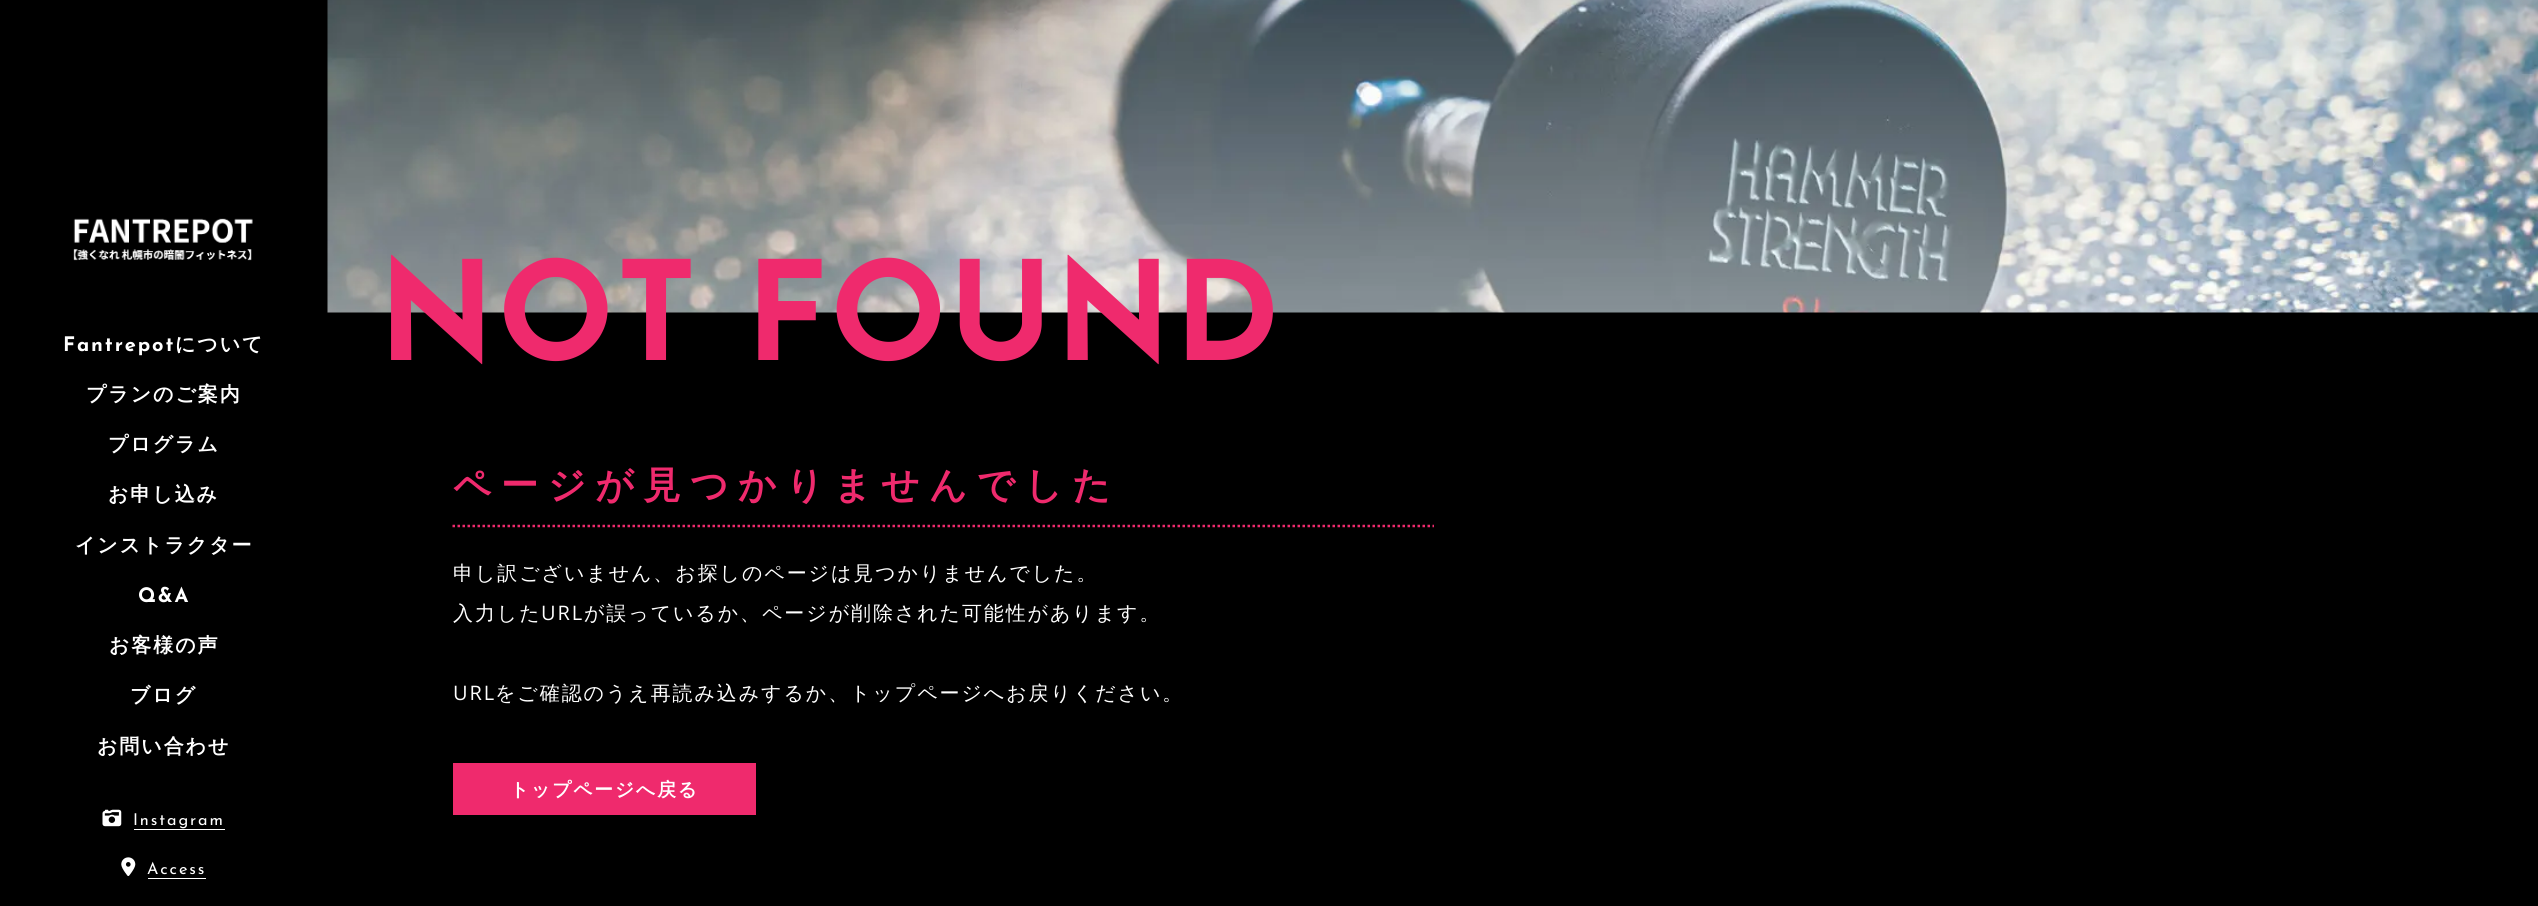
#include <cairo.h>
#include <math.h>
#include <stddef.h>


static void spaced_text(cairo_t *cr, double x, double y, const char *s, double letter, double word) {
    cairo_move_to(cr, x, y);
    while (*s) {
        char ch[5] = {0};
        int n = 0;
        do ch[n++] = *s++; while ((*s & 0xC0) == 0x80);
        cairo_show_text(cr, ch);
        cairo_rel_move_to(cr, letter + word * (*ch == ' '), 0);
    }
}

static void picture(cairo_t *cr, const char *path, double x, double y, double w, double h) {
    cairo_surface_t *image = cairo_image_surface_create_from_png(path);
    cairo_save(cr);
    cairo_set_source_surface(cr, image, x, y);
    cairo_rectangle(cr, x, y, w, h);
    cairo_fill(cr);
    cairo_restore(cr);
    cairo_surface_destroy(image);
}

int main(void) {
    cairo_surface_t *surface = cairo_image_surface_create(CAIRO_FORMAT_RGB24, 2538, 906);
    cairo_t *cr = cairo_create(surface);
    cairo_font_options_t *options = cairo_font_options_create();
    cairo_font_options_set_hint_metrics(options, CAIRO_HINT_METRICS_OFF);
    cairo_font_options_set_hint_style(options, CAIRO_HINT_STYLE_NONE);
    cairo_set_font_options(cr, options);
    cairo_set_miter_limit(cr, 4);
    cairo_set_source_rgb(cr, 0, 0, 0);
    cairo_paint(cr);
    picture(cr, "img1.png", 73, 218, 180, 43);
    cairo_select_font_face(cr, "Josefin Sans", CAIRO_FONT_SLANT_NORMAL, CAIRO_FONT_WEIGHT_BOLD);
    cairo_set_font_size(cr, 20);
    cairo_set_source_rgb(cr, 1, 1, 1);
    spaced_text(cr, 63, 351, "Fantrepot", 1.9, 0);
    cairo_select_font_face(cr, "WenQuanYi Zen Hei", CAIRO_FONT_SLANT_NORMAL, CAIRO_FONT_WEIGHT_BOLD);
    spaced_text(cr, 175, 351, "について", 1.9, 0);
    spaced_text(cr, 86, 401, "プランのご案内", 1.9, 0);
    spaced_text(cr, 108, 451, "プログラム", 1.9, 0);
    spaced_text(cr, 108, 501, "お申し込み", 1.9, 0);
    spaced_text(cr, 75, 552, "インストラクター", 1.9, 0);
    cairo_select_font_face(cr, "Josefin Sans", CAIRO_FONT_SLANT_NORMAL, CAIRO_FONT_WEIGHT_BOLD);
    spaced_text(cr, 138, 602, "Q&A", 1.9, 0);
    cairo_select_font_face(cr, "WenQuanYi Zen Hei", CAIRO_FONT_SLANT_NORMAL, CAIRO_FONT_WEIGHT_BOLD);
    spaced_text(cr, 109, 652, "お客様の声", 1.9, 0);
    spaced_text(cr, 130, 702, "ブログ", 1.9, 0);
    spaced_text(cr, 97, 753, "お問い合わせ", 1.9, 0);
    picture(cr, "img2.png", 102, 809, 20, 18);
    cairo_select_font_face(cr, "Josefin Sans", CAIRO_FONT_SLANT_NORMAL, CAIRO_FONT_WEIGHT_NORMAL);
    cairo_set_font_size(cr, 16.25);
    spaced_text(cr, 133, 825, "Instagram", 1.9, 0);
    cairo_rectangle(cr, 134, 829, 91, 1);
    cairo_fill(cr);
    picture(cr, "img3.png", 121, 857, 15, 19);
    spaced_text(cr, 147, 874, "Access", 1.9, 0);
    cairo_rectangle(cr, 148, 878, 58, 1);
    cairo_fill(cr);
    picture(cr, "img4.png", 327, 0, 2211, 313);
    cairo_select_font_face(cr, "Josefin Sans", CAIRO_FONT_SLANT_NORMAL, CAIRO_FONT_WEIGHT_BOLD);
    cairo_set_font_size(cr, 137.5);
    cairo_set_source_rgb(cr, 0.937, 0.165, 0.427);
    spaced_text(cr, 378, 360, "NOT FOUND", 1.9, 0);
    cairo_new_path(cr);
    cairo_move_to(cr, 452.5, 526);
    cairo_line_to(cr, 1434, 526);
    cairo_set_line_width(cr, 2.5);
    cairo_set_dash(cr, (double[]){2.5, 2.5}, 2, 0);
    cairo_stroke(cr);
    cairo_select_font_face(cr, "WenQuanYi Zen Hei", CAIRO_FONT_SLANT_NORMAL, CAIRO_FONT_WEIGHT_BOLD);
    cairo_set_font_size(cr, 37.5);
    spaced_text(cr, 453, 498, "ページが見つかりませんでした", 9.4, 0);
    cairo_select_font_face(cr, "WenQuanYi Zen Hei Medium", CAIRO_FONT_SLANT_NORMAL, CAIRO_FONT_WEIGHT_NORMAL);
    cairo_set_font_size(cr, 20);
    cairo_set_source_rgb(cr, 1, 1, 1);
    spaced_text(cr, 453, 580, "申し訳ございません、お探しのページは見つかりませんでした。", 1.9, 0);
    spaced_text(cr, 453, 620, "入力した", 1.9, 0);
    cairo_select_font_face(cr, "Open Sans", CAIRO_FONT_SLANT_NORMAL, CAIRO_FONT_WEIGHT_NORMAL);
    spaced_text(cr, 541, 620, "URL", 1.9, 0);
    cairo_select_font_face(cr, "WenQuanYi Zen Hei Medium", CAIRO_FONT_SLANT_NORMAL, CAIRO_FONT_WEIGHT_NORMAL);
    spaced_text(cr, 584, 620, "が誤っているか、ページが削除された可能性があります。", 1.9, 0);
    cairo_select_font_face(cr, "Open Sans", CAIRO_FONT_SLANT_NORMAL, CAIRO_FONT_WEIGHT_NORMAL);
    spaced_text(cr, 453, 700, "URL", 1.9, 0);
    cairo_select_font_face(cr, "WenQuanYi Zen Hei Medium", CAIRO_FONT_SLANT_NORMAL, CAIRO_FONT_WEIGHT_NORMAL);
    spaced_text(cr, 495, 700, "をご確認のうえ再読み込みするか、トップページへお戻りください。", 1.9, 0);
    cairo_set_source_rgb(cr, 0.937, 0.165, 0.427);
    cairo_rectangle(cr, 453, 763, 303, 52);
    cairo_fill(cr);
    cairo_select_font_face(cr, "WenQuanYi Zen Hei", CAIRO_FONT_SLANT_NORMAL, CAIRO_FONT_WEIGHT_BOLD);
    cairo_set_font_size(cr, 18.75);
    cairo_set_source_rgb(cr, 1, 1, 1);
    spaced_text(cr, 510, 796, "トップページへ戻る", 1.9, 0);
    cairo_surface_write_to_png(surface, "page.png");
    cairo_font_options_destroy(options);
    cairo_destroy(cr);
    cairo_surface_destroy(surface);
    return 0;
}
